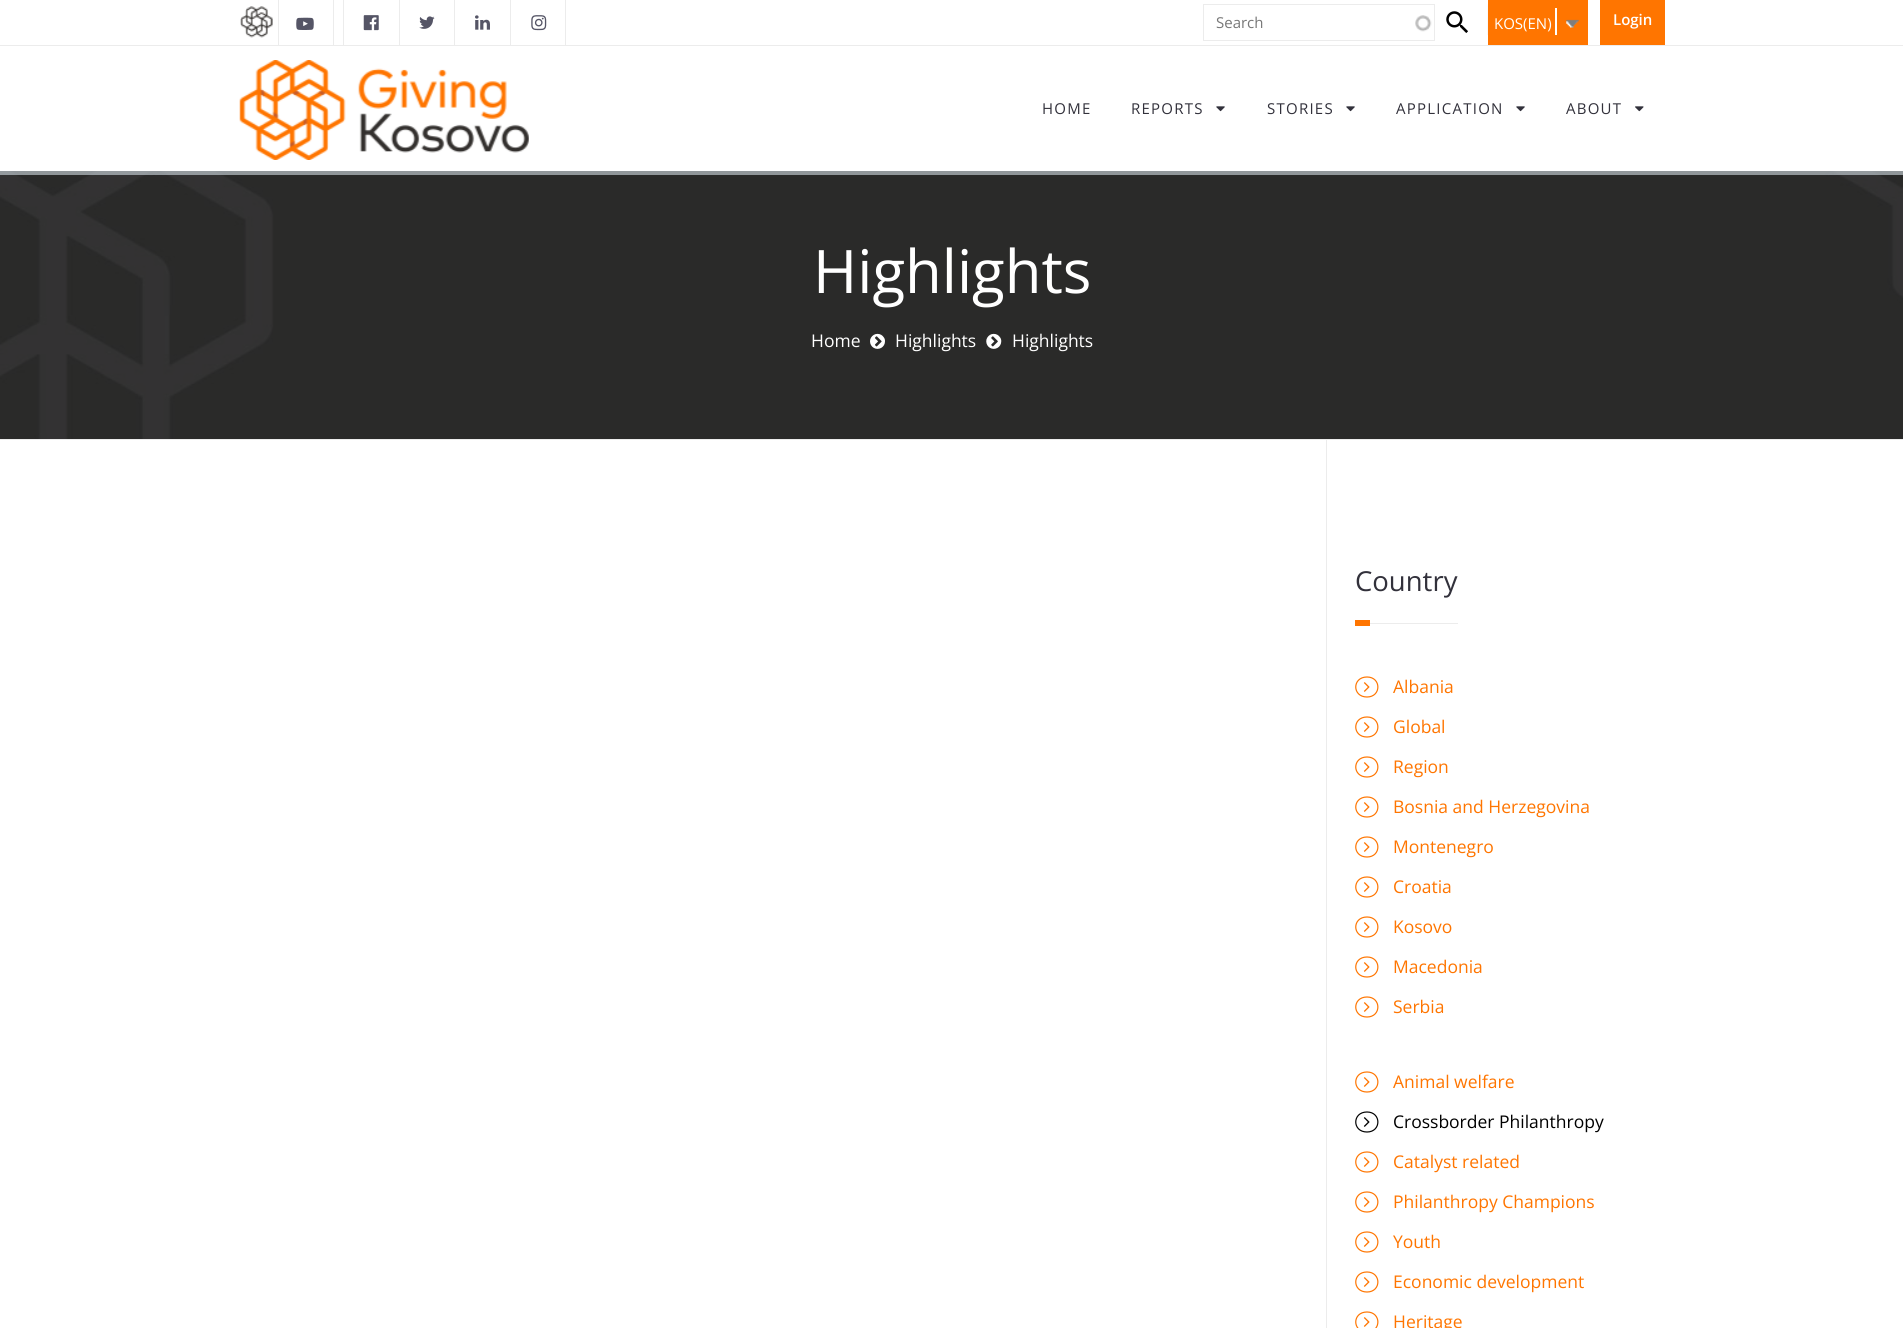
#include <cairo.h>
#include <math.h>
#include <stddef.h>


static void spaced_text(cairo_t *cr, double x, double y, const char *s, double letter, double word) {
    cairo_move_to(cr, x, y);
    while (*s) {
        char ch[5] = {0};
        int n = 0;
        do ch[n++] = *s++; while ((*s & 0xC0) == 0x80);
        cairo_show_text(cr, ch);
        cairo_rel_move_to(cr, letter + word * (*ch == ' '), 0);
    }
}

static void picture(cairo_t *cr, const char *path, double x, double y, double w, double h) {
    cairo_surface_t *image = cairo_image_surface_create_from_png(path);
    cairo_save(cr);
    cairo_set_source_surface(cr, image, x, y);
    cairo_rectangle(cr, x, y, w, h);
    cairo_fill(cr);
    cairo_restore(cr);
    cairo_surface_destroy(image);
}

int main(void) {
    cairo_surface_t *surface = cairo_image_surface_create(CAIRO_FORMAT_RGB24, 1903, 1328);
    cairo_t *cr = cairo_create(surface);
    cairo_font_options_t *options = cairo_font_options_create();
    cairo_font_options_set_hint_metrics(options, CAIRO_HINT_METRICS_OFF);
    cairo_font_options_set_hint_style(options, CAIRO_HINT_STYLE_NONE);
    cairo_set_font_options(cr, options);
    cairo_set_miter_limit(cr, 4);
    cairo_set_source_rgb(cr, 1, 1, 1);
    cairo_paint(cr);
    cairo_set_source_rgb(cr, 0.925, 0.925, 0.925);
    cairo_rectangle(cr, 0, 45, 1903, 1);
    cairo_fill(cr);
    picture(cr, "img1.png", 240, 6, 33, 32);
    cairo_rectangle(cr, 333, 0, 1, 45);
    cairo_fill(cr);
    cairo_rectangle(cr, 278, 0, 1, 45);
    cairo_fill(cr);
    picture(cr, "img2.png", 296, 17, 18, 13);
    cairo_rectangle(cr, 399, 0, 1, 45);
    cairo_fill(cr);
    cairo_rectangle(cr, 343, 0, 1, 45);
    cairo_fill(cr);
    picture(cr, "img3.png", 363, 15, 16, 16);
    cairo_rectangle(cr, 454, 0, 1, 45);
    cairo_fill(cr);
    picture(cr, "img4.png", 419, 16, 16, 13);
    cairo_rectangle(cr, 510, 0, 1, 45);
    cairo_fill(cr);
    picture(cr, "img5.png", 475, 15, 15, 15);
    cairo_rectangle(cr, 565, 0, 1, 45);
    cairo_fill(cr);
    picture(cr, "img6.png", 531, 15, 16, 16);
    picture(cr, "img7.png", 1415, 15, 17, 17);
    cairo_rectangle(cr, 1203.5, 4.5, 231, 36);
    cairo_set_line_width(cr, 1);
    cairo_stroke(cr);
    cairo_select_font_face(cr, "Open Sans", CAIRO_FONT_SLANT_NORMAL, CAIRO_FONT_WEIGHT_NORMAL);
    cairo_set_font_size(cr, 15);
    cairo_set_source_rgb(cr, 0.467, 0.467, 0.467);
    cairo_move_to(cr, 1216, 28);
    cairo_show_text(cr, "Search");
    picture(cr, "img8.png", 1446, 11, 22, 22);
    picture(cr, "img9.png", 1487, 4, 1, 31);
    cairo_set_source_rgb(cr, 1, 0.459, 0);
    cairo_rectangle(cr, 1488, 0, 100, 45);
    cairo_fill(cr);
    cairo_set_source_rgb(cr, 1, 1, 1);
    cairo_move_to(cr, 1494, 29);
    cairo_show_text(cr, "KOS(EN)");
    cairo_rectangle(cr, 1555, 8, 2, 27);
    cairo_fill(cr);
    picture(cr, "img10.png", 1566, 19, 13, 9);
    cairo_set_source_rgb(cr, 1, 0.459, 0);
    cairo_rectangle(cr, 1600, 0, 65, 45);
    cairo_fill(cr);
    cairo_select_font_face(cr, "Open Sans SemiBold", CAIRO_FONT_SLANT_NORMAL, CAIRO_FONT_WEIGHT_NORMAL);
    cairo_set_source_rgb(cr, 1, 1, 1);
    cairo_move_to(cr, 1613, 25);
    cairo_show_text(cr, "Login");
    picture(cr, "img14.png", 0, 171, 1903, 268);
    cairo_set_source_rgba(cr, 0.839, 0.878, 0.902, 0.6);
    cairo_new_path(cr);
    cairo_move_to(cr, 0, 171);
    cairo_line_to(cr, 0, 175);
    cairo_line_to(cr, 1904, 175);
    cairo_line_to(cr, 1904, 50);
    cairo_line_to(cr, 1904, 171);
    cairo_close_path(cr);
    cairo_fill(cr);
    picture(cr, "img11.png", 239, 60, 290, 100);
    cairo_select_font_face(cr, "Open Sans", CAIRO_FONT_SLANT_NORMAL, CAIRO_FONT_WEIGHT_NORMAL);
    cairo_set_source_rgb(cr, 0.196, 0.192, 0.231);
    spaced_text(cr, 1042, 114, "HOME", 1.25, 0);
    spaced_text(cr, 1131, 114, "REPORTS", 1.25, 0);
    picture(cr, "img12.png", 1216, 106, 9, 6);
    spaced_text(cr, 1267, 114, "STORIES", 1.25, 0);
    picture(cr, "img12.png", 1346, 106, 9, 6);
    spaced_text(cr, 1396, 114, "APPLICATION", 1.25, 0);
    picture(cr, "img12.png", 1516, 106, 9, 6);
    spaced_text(cr, 1566, 114, "ABOUT", 1.25, 0);
    picture(cr, "img13.png", 1635, 106, 9, 6);
    cairo_set_source_rgb(cr, 0.925, 0.925, 0.925);
    cairo_rectangle(cr, 0, 439, 1903, 1);
    cairo_fill(cr);
    cairo_set_font_size(cr, 60);
    cairo_set_source_rgb(cr, 1, 1, 1);
    cairo_move_to(cr, 813, 293);
    cairo_show_text(cr, "Highlights");
    cairo_set_font_size(cr, 17.5);
    cairo_move_to(cr, 811, 347);
    cairo_show_text(cr, "Home");
    picture(cr, "img15.png", 870, 333, 15, 16);
    cairo_move_to(cr, 895, 347);
    cairo_show_text(cr, "Highlights");
    picture(cr, "img16.png", 986, 333, 16, 16);
    cairo_move_to(cr, 1012, 347);
    cairo_show_text(cr, "Highlights");
    cairo_set_source_rgb(cr, 0.925, 0.925, 0.925);
    cairo_rectangle(cr, 1326, 440, 1, 888);
    cairo_fill(cr);
    cairo_set_font_size(cr, 27.5);
    cairo_set_source_rgb(cr, 0.196, 0.192, 0.231);
    cairo_move_to(cr, 1355, 591);
    cairo_show_text(cr, "Country");
    cairo_set_source_rgb(cr, 1, 0.459, 0);
    cairo_rectangle(cr, 1355, 620, 15, 6);
    cairo_fill(cr);
    cairo_set_source_rgb(cr, 0.925, 0.925, 0.925);
    cairo_rectangle(cr, 1370, 623, 88, 1);
    cairo_fill(cr);
    cairo_new_path(cr);
    cairo_move_to(cr, 1367, 677);
    cairo_curve_to(cr, 1381.5, 677, 1381.5, 697, 1367, 697);
    cairo_curve_to(cr, 1352, 697, 1352, 677, 1367, 677);
    cairo_close_path(cr);
    cairo_set_source_rgb(cr, 1, 0.459, 0);
    cairo_set_line_width(cr, 1.2);
    cairo_stroke(cr);
    picture(cr, "img17.png", 1363, 682, 7, 10);
    cairo_set_font_size(cr, 17.5);
    cairo_move_to(cr, 1393, 693);
    cairo_show_text(cr, "Albania");
    cairo_new_path(cr);
    cairo_move_to(cr, 1367, 717);
    cairo_curve_to(cr, 1381.5, 717, 1381.5, 737, 1367, 737);
    cairo_curve_to(cr, 1352, 737, 1352, 717, 1367, 717);
    cairo_close_path(cr);
    cairo_stroke(cr);
    picture(cr, "img17.png", 1363, 722, 7, 10);
    cairo_move_to(cr, 1393, 733);
    cairo_show_text(cr, "Global");
    cairo_new_path(cr);
    cairo_move_to(cr, 1367, 757);
    cairo_curve_to(cr, 1381.5, 757, 1381.5, 777, 1367, 777);
    cairo_curve_to(cr, 1352, 777, 1352, 757, 1367, 757);
    cairo_close_path(cr);
    cairo_stroke(cr);
    picture(cr, "img17.png", 1363, 762, 7, 10);
    cairo_move_to(cr, 1393, 773);
    cairo_show_text(cr, "Region");
    cairo_new_path(cr);
    cairo_move_to(cr, 1367, 797);
    cairo_curve_to(cr, 1381.5, 797, 1381.5, 817, 1367, 817);
    cairo_curve_to(cr, 1352, 817, 1352, 797, 1367, 797);
    cairo_close_path(cr);
    cairo_stroke(cr);
    picture(cr, "img17.png", 1363, 802, 7, 10);
    cairo_move_to(cr, 1393, 813);
    cairo_show_text(cr, "Bosnia and Herzegovina");
    cairo_new_path(cr);
    cairo_move_to(cr, 1367, 837);
    cairo_curve_to(cr, 1381.5, 837, 1381.5, 857, 1367, 857);
    cairo_curve_to(cr, 1352, 857, 1352, 837, 1367, 837);
    cairo_close_path(cr);
    cairo_stroke(cr);
    picture(cr, "img17.png", 1363, 842, 7, 10);
    cairo_move_to(cr, 1393, 853);
    cairo_show_text(cr, "Montenegro");
    cairo_new_path(cr);
    cairo_move_to(cr, 1367, 877);
    cairo_curve_to(cr, 1381.5, 877, 1381.5, 897, 1367, 897);
    cairo_curve_to(cr, 1352, 897, 1352, 877, 1367, 877);
    cairo_close_path(cr);
    cairo_stroke(cr);
    picture(cr, "img17.png", 1363, 882, 7, 10);
    cairo_move_to(cr, 1393, 893);
    cairo_show_text(cr, "Croatia");
    cairo_new_path(cr);
    cairo_move_to(cr, 1367, 917);
    cairo_curve_to(cr, 1381.5, 917, 1381.5, 937, 1367, 937);
    cairo_curve_to(cr, 1352, 937, 1352, 917, 1367, 917);
    cairo_close_path(cr);
    cairo_stroke(cr);
    picture(cr, "img17.png", 1363, 922, 7, 10);
    cairo_move_to(cr, 1393, 933);
    cairo_show_text(cr, "Kosovo");
    cairo_new_path(cr);
    cairo_move_to(cr, 1367, 957);
    cairo_curve_to(cr, 1381.5, 957, 1381.5, 977, 1367, 977);
    cairo_curve_to(cr, 1352, 977, 1352, 957, 1367, 957);
    cairo_close_path(cr);
    cairo_stroke(cr);
    picture(cr, "img17.png", 1363, 962, 7, 10);
    cairo_move_to(cr, 1393, 973);
    cairo_show_text(cr, "Macedonia");
    cairo_new_path(cr);
    cairo_move_to(cr, 1367, 997);
    cairo_curve_to(cr, 1381.5, 997, 1381.5, 1017, 1367, 1017);
    cairo_curve_to(cr, 1352, 1017, 1352, 997, 1367, 997);
    cairo_close_path(cr);
    cairo_stroke(cr);
    picture(cr, "img17.png", 1363, 1002, 7, 10);
    cairo_move_to(cr, 1393, 1013);
    cairo_show_text(cr, "Serbia");
    cairo_new_path(cr);
    cairo_move_to(cr, 1367, 1072);
    cairo_curve_to(cr, 1381.5, 1072, 1381.5, 1092, 1367, 1092);
    cairo_curve_to(cr, 1352, 1092, 1352, 1072, 1367, 1072);
    cairo_close_path(cr);
    cairo_stroke(cr);
    picture(cr, "img17.png", 1363, 1077, 7, 10);
    cairo_move_to(cr, 1393, 1088);
    cairo_show_text(cr, "Animal welfare");
    cairo_new_path(cr);
    cairo_move_to(cr, 1367, 1112);
    cairo_curve_to(cr, 1381.5, 1112, 1381.5, 1132, 1367, 1132);
    cairo_curve_to(cr, 1352, 1132, 1352, 1112, 1367, 1112);
    cairo_close_path(cr);
    cairo_set_source_rgb(cr, 0, 0, 0);
    cairo_stroke(cr);
    picture(cr, "img18.png", 1363, 1117, 7, 10);
    cairo_move_to(cr, 1393, 1128);
    cairo_show_text(cr, "Crossborder Philanthropy");
    cairo_new_path(cr);
    cairo_move_to(cr, 1367, 1152);
    cairo_curve_to(cr, 1381.5, 1152, 1381.5, 1172, 1367, 1172);
    cairo_curve_to(cr, 1352, 1172, 1352, 1152, 1367, 1152);
    cairo_close_path(cr);
    cairo_set_source_rgb(cr, 1, 0.459, 0);
    cairo_stroke(cr);
    picture(cr, "img17.png", 1363, 1157, 7, 10);
    cairo_move_to(cr, 1393, 1168);
    cairo_show_text(cr, "Catalyst related");
    cairo_new_path(cr);
    cairo_move_to(cr, 1367, 1192);
    cairo_curve_to(cr, 1381.5, 1192, 1381.5, 1212, 1367, 1212);
    cairo_curve_to(cr, 1352, 1212, 1352, 1192, 1367, 1192);
    cairo_close_path(cr);
    cairo_stroke(cr);
    picture(cr, "img17.png", 1363, 1197, 7, 10);
    cairo_move_to(cr, 1393, 1208);
    cairo_show_text(cr, "Philanthropy Champions");
    cairo_new_path(cr);
    cairo_move_to(cr, 1367, 1232);
    cairo_curve_to(cr, 1381.5, 1232, 1381.5, 1252, 1367, 1252);
    cairo_curve_to(cr, 1352, 1252, 1352, 1232, 1367, 1232);
    cairo_close_path(cr);
    cairo_stroke(cr);
    picture(cr, "img17.png", 1363, 1237, 7, 10);
    cairo_move_to(cr, 1393, 1248);
    cairo_show_text(cr, "Youth");
    cairo_new_path(cr);
    cairo_move_to(cr, 1367, 1272);
    cairo_curve_to(cr, 1381.5, 1272, 1381.5, 1292, 1367, 1292);
    cairo_curve_to(cr, 1352, 1292, 1352, 1272, 1367, 1272);
    cairo_close_path(cr);
    cairo_stroke(cr);
    picture(cr, "img17.png", 1363, 1277, 7, 10);
    cairo_move_to(cr, 1393, 1288);
    cairo_show_text(cr, "Economic development");
    cairo_new_path(cr);
    cairo_move_to(cr, 1367, 1312);
    cairo_curve_to(cr, 1381.5, 1312, 1381.5, 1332, 1367, 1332);
    cairo_curve_to(cr, 1352, 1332, 1352, 1312, 1367, 1312);
    cairo_close_path(cr);
    cairo_stroke(cr);
    picture(cr, "img17.png", 1363, 1317, 7, 10);
    cairo_move_to(cr, 1393, 1328);
    cairo_show_text(cr, "Heritage");
    cairo_surface_write_to_png(surface, "page.png");
    cairo_font_options_destroy(options);
    cairo_destroy(cr);
    cairo_surface_destroy(surface);
    return 0;
}
